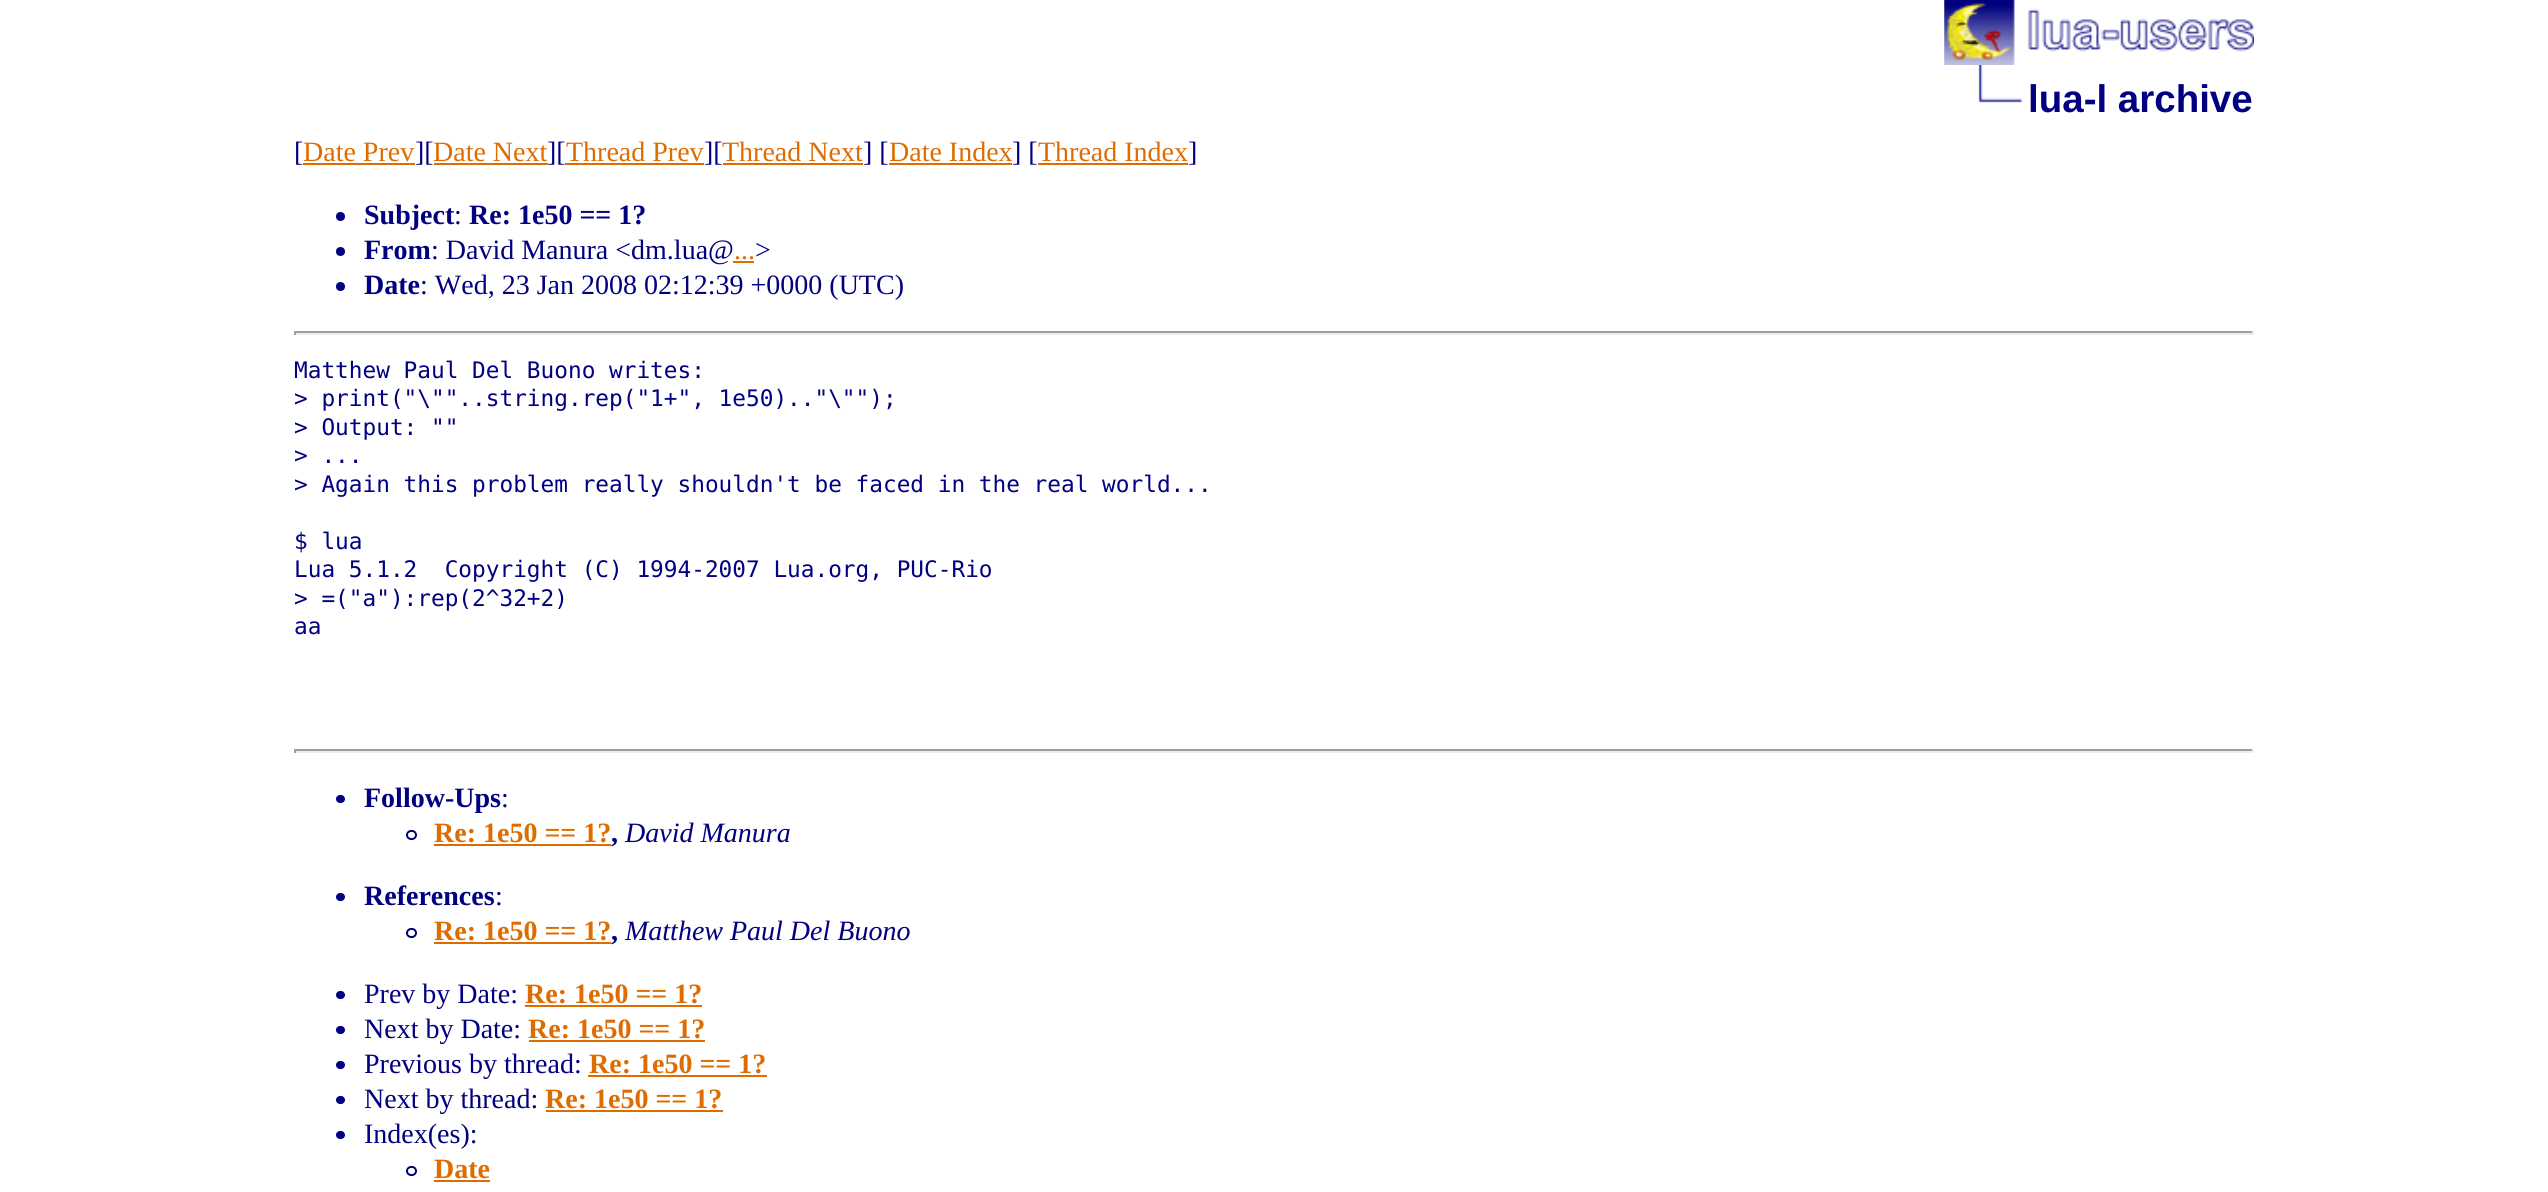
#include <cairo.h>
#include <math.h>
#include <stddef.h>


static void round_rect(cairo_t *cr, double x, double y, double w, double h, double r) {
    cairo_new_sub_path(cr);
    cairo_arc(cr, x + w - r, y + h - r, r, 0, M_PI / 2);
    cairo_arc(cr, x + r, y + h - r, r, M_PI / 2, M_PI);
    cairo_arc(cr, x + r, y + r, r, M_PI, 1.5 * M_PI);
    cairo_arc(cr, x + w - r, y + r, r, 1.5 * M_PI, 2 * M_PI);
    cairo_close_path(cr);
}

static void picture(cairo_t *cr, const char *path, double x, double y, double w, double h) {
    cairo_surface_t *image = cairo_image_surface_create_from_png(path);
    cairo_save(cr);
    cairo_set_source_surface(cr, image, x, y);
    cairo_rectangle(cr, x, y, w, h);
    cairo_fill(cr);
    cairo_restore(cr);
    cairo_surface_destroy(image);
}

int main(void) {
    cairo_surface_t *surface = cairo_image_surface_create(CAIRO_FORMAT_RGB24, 2548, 1192);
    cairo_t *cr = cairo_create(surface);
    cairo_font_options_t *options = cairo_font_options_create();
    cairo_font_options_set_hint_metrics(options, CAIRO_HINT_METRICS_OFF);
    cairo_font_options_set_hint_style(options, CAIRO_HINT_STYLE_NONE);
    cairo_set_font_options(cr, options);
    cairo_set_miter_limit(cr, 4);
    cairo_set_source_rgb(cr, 1, 1, 1);
    cairo_paint(cr);
    picture(cr, "img1.png", 1944, 0, 310, 65);
    picture(cr, "img2.png", 1978, 65, 45, 38);
    cairo_select_font_face(cr, "Liberation Sans", CAIRO_FONT_SLANT_NORMAL, CAIRO_FONT_WEIGHT_BOLD);
    cairo_set_font_size(cr, 38.5);
    cairo_set_source_rgb(cr, 0, 0, 0.502);
    cairo_move_to(cr, 2028, 112);
    cairo_show_text(cr, "lua-l archive");
    cairo_select_font_face(cr, "Liberation Serif", CAIRO_FONT_SLANT_NORMAL, CAIRO_FONT_WEIGHT_NORMAL);
    cairo_set_font_size(cr, 28);
    cairo_move_to(cr, 294, 161);
    cairo_show_text(cr, "[");
    cairo_set_source_rgb(cr, 0.875, 0.424, 0);
    cairo_move_to(cr, 303, 161);
    cairo_show_text(cr, "Date Prev");
    cairo_rectangle(cr, 303, 163, 112, 2);
    cairo_fill(cr);
    cairo_set_source_rgb(cr, 0, 0, 0.502);
    cairo_move_to(cr, 415, 161);
    cairo_show_text(cr, "][");
    cairo_set_source_rgb(cr, 0.875, 0.424, 0);
    cairo_move_to(cr, 433, 161);
    cairo_show_text(cr, "Date Next");
    cairo_rectangle(cr, 434, 163, 114, 2);
    cairo_fill(cr);
    cairo_set_source_rgb(cr, 0, 0, 0.502);
    cairo_move_to(cr, 547, 161);
    cairo_show_text(cr, "][");
    cairo_set_source_rgb(cr, 0.875, 0.424, 0);
    cairo_move_to(cr, 566, 161);
    cairo_show_text(cr, "Thread Prev");
    cairo_rectangle(cr, 565, 163, 139, 2);
    cairo_fill(cr);
    cairo_set_source_rgb(cr, 0, 0, 0.502);
    cairo_move_to(cr, 704, 161);
    cairo_show_text(cr, "][");
    cairo_set_source_rgb(cr, 0.875, 0.424, 0);
    cairo_move_to(cr, 722, 161);
    cairo_show_text(cr, "Thread Next");
    cairo_rectangle(cr, 723, 163, 140, 2);
    cairo_fill(cr);
    cairo_set_source_rgb(cr, 0, 0, 0.502);
    cairo_move_to(cr, 863, 161);
    cairo_show_text(cr, "] [");
    cairo_set_source_rgb(cr, 0.875, 0.424, 0);
    cairo_move_to(cr, 889, 161);
    cairo_show_text(cr, "Date Index");
    cairo_rectangle(cr, 889, 163, 123, 2);
    cairo_fill(cr);
    cairo_set_source_rgb(cr, 0, 0, 0.502);
    cairo_move_to(cr, 1012, 161);
    cairo_show_text(cr, "] [");
    cairo_set_source_rgb(cr, 0.875, 0.424, 0);
    cairo_move_to(cr, 1038, 161);
    cairo_show_text(cr, "Thread Index");
    cairo_rectangle(cr, 1038, 163, 150, 2);
    cairo_fill(cr);
    cairo_set_source_rgb(cr, 0, 0, 0.502);
    cairo_move_to(cr, 1188, 161);
    cairo_show_text(cr, "]");
    cairo_new_path(cr);
    cairo_arc(cr, 340.5, 216.5, 4.5, 0, 2 * M_PI);
    cairo_fill(cr);
    cairo_select_font_face(cr, "Liberation Serif", CAIRO_FONT_SLANT_NORMAL, CAIRO_FONT_WEIGHT_BOLD);
    cairo_move_to(cr, 364, 224);
    cairo_show_text(cr, "Subject");
    cairo_select_font_face(cr, "Liberation Serif", CAIRO_FONT_SLANT_NORMAL, CAIRO_FONT_WEIGHT_NORMAL);
    cairo_move_to(cr, 454, 224);
    cairo_show_text(cr, ":");
    cairo_select_font_face(cr, "Liberation Serif", CAIRO_FONT_SLANT_NORMAL, CAIRO_FONT_WEIGHT_BOLD);
    cairo_move_to(cr, 469, 224);
    cairo_show_text(cr, "Re: 1e50 == 1?");
    cairo_new_path(cr);
    cairo_arc(cr, 340.5, 251.5, 4.5, 0, 2 * M_PI);
    cairo_fill(cr);
    cairo_move_to(cr, 364, 259);
    cairo_show_text(cr, "From");
    cairo_select_font_face(cr, "Liberation Serif", CAIRO_FONT_SLANT_NORMAL, CAIRO_FONT_WEIGHT_NORMAL);
    cairo_move_to(cr, 431, 259);
    cairo_show_text(cr, ": David Manura <dm.lua@");
    cairo_move_to(cr, 755, 259);
    cairo_show_text(cr, ">");
    cairo_set_source_rgb(cr, 0.875, 0.424, 0);
    cairo_move_to(cr, 734, 259);
    cairo_show_text(cr, "...");
    cairo_rectangle(cr, 733, 261, 21, 2);
    cairo_fill(cr);
    cairo_set_source_rgb(cr, 0, 0, 0.502);
    cairo_arc(cr, 340.5, 286.5, 4.5, 0, 2 * M_PI);
    cairo_fill(cr);
    cairo_select_font_face(cr, "Liberation Serif", CAIRO_FONT_SLANT_NORMAL, CAIRO_FONT_WEIGHT_BOLD);
    cairo_move_to(cr, 364, 294);
    cairo_show_text(cr, "Date");
    cairo_select_font_face(cr, "Liberation Serif", CAIRO_FONT_SLANT_NORMAL, CAIRO_FONT_WEIGHT_NORMAL);
    cairo_move_to(cr, 420, 294);
    cairo_show_text(cr, ": Wed, 23 Jan 2008 02:12:39 +0000 (UTC)");
    cairo_set_source_rgb(cr, 0.624, 0.624, 0.624);
    cairo_rectangle(cr, 294, 331, 1960, 2);
    cairo_fill(cr);
    cairo_set_source_rgb(cr, 0.933, 0.933, 0.933);
    cairo_rectangle(cr, 2252, 331, 2, 4);
    cairo_fill(cr);
    cairo_rectangle(cr, 294, 333, 1960, 2);
    cairo_fill(cr);
    cairo_set_source_rgb(cr, 0.624, 0.624, 0.624);
    cairo_rectangle(cr, 294, 331, 2, 4);
    cairo_fill(cr);
    cairo_select_font_face(cr, "DejaVu Sans Mono", CAIRO_FONT_SLANT_NORMAL, CAIRO_FONT_WEIGHT_NORMAL);
    cairo_set_font_size(cr, 22.75);
    cairo_set_source_rgb(cr, 0, 0, 0.502);
    cairo_move_to(cr, 294, 378);
    cairo_show_text(cr, "Matthew Paul Del Buono writes:");
    cairo_move_to(cr, 294, 406);
    cairo_show_text(cr, "> print(\"\\\"\"..string.rep(\"1+\", 1e50)..\"\\\"\");");
    cairo_move_to(cr, 294, 435);
    cairo_show_text(cr, "> Output: \"\"");
    cairo_move_to(cr, 294, 463);
    cairo_show_text(cr, "> ...");
    cairo_move_to(cr, 294, 492);
    cairo_show_text(cr, "> Again this problem really shouldn't be faced in the real world...");
    cairo_move_to(cr, 294, 549);
    cairo_show_text(cr, "$ lua");
    cairo_move_to(cr, 294, 577);
    cairo_show_text(cr, "Lua 5.1.2  Copyright (C) 1994-2007 Lua.org, PUC-Rio");
    cairo_move_to(cr, 294, 606);
    cairo_show_text(cr, "> =(\"a\"):rep(2^32+2)");
    cairo_move_to(cr, 294, 634);
    cairo_show_text(cr, "aa");
    cairo_set_source_rgb(cr, 0.624, 0.624, 0.624);
    cairo_rectangle(cr, 294, 749, 1960, 2);
    cairo_fill(cr);
    cairo_set_source_rgb(cr, 0.933, 0.933, 0.933);
    cairo_rectangle(cr, 2252, 749, 2, 4);
    cairo_fill(cr);
    cairo_rectangle(cr, 294, 751, 1960, 2);
    cairo_fill(cr);
    cairo_set_source_rgb(cr, 0.624, 0.624, 0.624);
    cairo_rectangle(cr, 294, 749, 2, 4);
    cairo_fill(cr);
    cairo_set_source_rgb(cr, 0, 0, 0.502);
    round_rect(cr, 336, 795, 9, 8, 4);
    cairo_fill(cr);
    cairo_select_font_face(cr, "Liberation Serif", CAIRO_FONT_SLANT_NORMAL, CAIRO_FONT_WEIGHT_BOLD);
    cairo_set_font_size(cr, 28);
    cairo_move_to(cr, 364, 807);
    cairo_show_text(cr, "Follow-Ups");
    cairo_select_font_face(cr, "Liberation Serif", CAIRO_FONT_SLANT_NORMAL, CAIRO_FONT_WEIGHT_NORMAL);
    cairo_move_to(cr, 501, 807);
    cairo_show_text(cr, ":");
    round_rect(cr, 407, 831, 9, 8, 4);
    cairo_stroke(cr);
    cairo_select_font_face(cr, "Liberation Serif", CAIRO_FONT_SLANT_NORMAL, CAIRO_FONT_WEIGHT_BOLD);
    cairo_set_source_rgb(cr, 0.875, 0.424, 0);
    cairo_move_to(cr, 434, 842);
    cairo_show_text(cr, "Re: 1e50 == 1?");
    cairo_select_font_face(cr, "Liberation Serif", CAIRO_FONT_SLANT_ITALIC, CAIRO_FONT_WEIGHT_NORMAL);
    cairo_set_source_rgb(cr, 0, 0, 0.502);
    cairo_move_to(cr, 625, 842);
    cairo_show_text(cr, "David Manura");
    cairo_select_font_face(cr, "Liberation Serif", CAIRO_FONT_SLANT_NORMAL, CAIRO_FONT_WEIGHT_BOLD);
    cairo_move_to(cr, 611, 842);
    cairo_show_text(cr, ",");
    cairo_set_source_rgb(cr, 0.875, 0.424, 0);
    cairo_rectangle(cr, 434, 844, 177, 2);
    cairo_fill(cr);
    cairo_set_source_rgb(cr, 0, 0, 0.502);
    round_rect(cr, 336, 893, 9, 8, 4);
    cairo_fill(cr);
    cairo_move_to(cr, 364, 905);
    cairo_show_text(cr, "References");
    cairo_select_font_face(cr, "Liberation Serif", CAIRO_FONT_SLANT_NORMAL, CAIRO_FONT_WEIGHT_NORMAL);
    cairo_move_to(cr, 495, 905);
    cairo_show_text(cr, ":");
    round_rect(cr, 407, 929, 9, 8, 4);
    cairo_stroke(cr);
    cairo_select_font_face(cr, "Liberation Serif", CAIRO_FONT_SLANT_NORMAL, CAIRO_FONT_WEIGHT_BOLD);
    cairo_set_source_rgb(cr, 0.875, 0.424, 0);
    cairo_move_to(cr, 434, 940);
    cairo_show_text(cr, "Re: 1e50 == 1?");
    cairo_select_font_face(cr, "Liberation Serif", CAIRO_FONT_SLANT_ITALIC, CAIRO_FONT_WEIGHT_NORMAL);
    cairo_set_source_rgb(cr, 0, 0, 0.502);
    cairo_move_to(cr, 625, 940);
    cairo_show_text(cr, "Matthew Paul Del Buono");
    cairo_select_font_face(cr, "Liberation Serif", CAIRO_FONT_SLANT_NORMAL, CAIRO_FONT_WEIGHT_BOLD);
    cairo_move_to(cr, 611, 940);
    cairo_show_text(cr, ",");
    cairo_set_source_rgb(cr, 0.875, 0.424, 0);
    cairo_rectangle(cr, 434, 942, 177, 2);
    cairo_fill(cr);
    cairo_set_source_rgb(cr, 0, 0, 0.502);
    round_rect(cr, 336, 991, 9, 8, 4);
    cairo_fill(cr);
    cairo_select_font_face(cr, "Liberation Serif", CAIRO_FONT_SLANT_NORMAL, CAIRO_FONT_WEIGHT_NORMAL);
    cairo_move_to(cr, 364, 1003);
    cairo_show_text(cr, "Prev by Date:");
    cairo_select_font_face(cr, "Liberation Serif", CAIRO_FONT_SLANT_NORMAL, CAIRO_FONT_WEIGHT_BOLD);
    cairo_set_source_rgb(cr, 0.875, 0.424, 0);
    cairo_move_to(cr, 525, 1003);
    cairo_show_text(cr, "Re: 1e50 == 1?");
    cairo_rectangle(cr, 525, 1005, 177, 2);
    cairo_fill(cr);
    cairo_set_source_rgb(cr, 0, 0, 0.502);
    round_rect(cr, 336, 1026, 9, 8, 4);
    cairo_fill(cr);
    cairo_select_font_face(cr, "Liberation Serif", CAIRO_FONT_SLANT_NORMAL, CAIRO_FONT_WEIGHT_NORMAL);
    cairo_move_to(cr, 364, 1038);
    cairo_show_text(cr, "Next by Date:");
    cairo_select_font_face(cr, "Liberation Serif", CAIRO_FONT_SLANT_NORMAL, CAIRO_FONT_WEIGHT_BOLD);
    cairo_set_source_rgb(cr, 0.875, 0.424, 0);
    cairo_move_to(cr, 528, 1038);
    cairo_show_text(cr, "Re: 1e50 == 1?");
    cairo_rectangle(cr, 529, 1040, 176, 2);
    cairo_fill(cr);
    cairo_set_source_rgb(cr, 0, 0, 0.502);
    round_rect(cr, 336, 1061, 9, 8, 4);
    cairo_fill(cr);
    cairo_select_font_face(cr, "Liberation Serif", CAIRO_FONT_SLANT_NORMAL, CAIRO_FONT_WEIGHT_NORMAL);
    cairo_move_to(cr, 364, 1073);
    cairo_show_text(cr, "Previous by thread:");
    cairo_select_font_face(cr, "Liberation Serif", CAIRO_FONT_SLANT_NORMAL, CAIRO_FONT_WEIGHT_BOLD);
    cairo_set_source_rgb(cr, 0.875, 0.424, 0);
    cairo_move_to(cr, 589, 1073);
    cairo_show_text(cr, "Re: 1e50 == 1?");
    cairo_rectangle(cr, 588, 1075, 179, 2);
    cairo_fill(cr);
    cairo_set_source_rgb(cr, 0, 0, 0.502);
    round_rect(cr, 336, 1096, 9, 8, 4);
    cairo_fill(cr);
    cairo_select_font_face(cr, "Liberation Serif", CAIRO_FONT_SLANT_NORMAL, CAIRO_FONT_WEIGHT_NORMAL);
    cairo_move_to(cr, 364, 1108);
    cairo_show_text(cr, "Next by thread:");
    cairo_select_font_face(cr, "Liberation Serif", CAIRO_FONT_SLANT_NORMAL, CAIRO_FONT_WEIGHT_BOLD);
    cairo_set_source_rgb(cr, 0.875, 0.424, 0);
    cairo_move_to(cr, 545, 1108);
    cairo_show_text(cr, "Re: 1e50 == 1?");
    cairo_rectangle(cr, 546, 1110, 177, 2);
    cairo_fill(cr);
    cairo_set_source_rgb(cr, 0, 0, 0.502);
    round_rect(cr, 336, 1131, 9, 8, 4);
    cairo_fill(cr);
    cairo_select_font_face(cr, "Liberation Serif", CAIRO_FONT_SLANT_NORMAL, CAIRO_FONT_WEIGHT_NORMAL);
    cairo_move_to(cr, 364, 1143);
    cairo_show_text(cr, "Index(es):");
    round_rect(cr, 407, 1167, 9, 8, 4);
    cairo_stroke(cr);
    cairo_select_font_face(cr, "Liberation Serif", CAIRO_FONT_SLANT_NORMAL, CAIRO_FONT_WEIGHT_BOLD);
    cairo_set_source_rgb(cr, 0.875, 0.424, 0);
    cairo_move_to(cr, 434, 1178);
    cairo_show_text(cr, "Date");
    cairo_rectangle(cr, 434, 1180, 56, 2);
    cairo_fill(cr);
    cairo_surface_write_to_png(surface, "page.png");
    cairo_font_options_destroy(options);
    cairo_destroy(cr);
    cairo_surface_destroy(surface);
    return 0;
}
